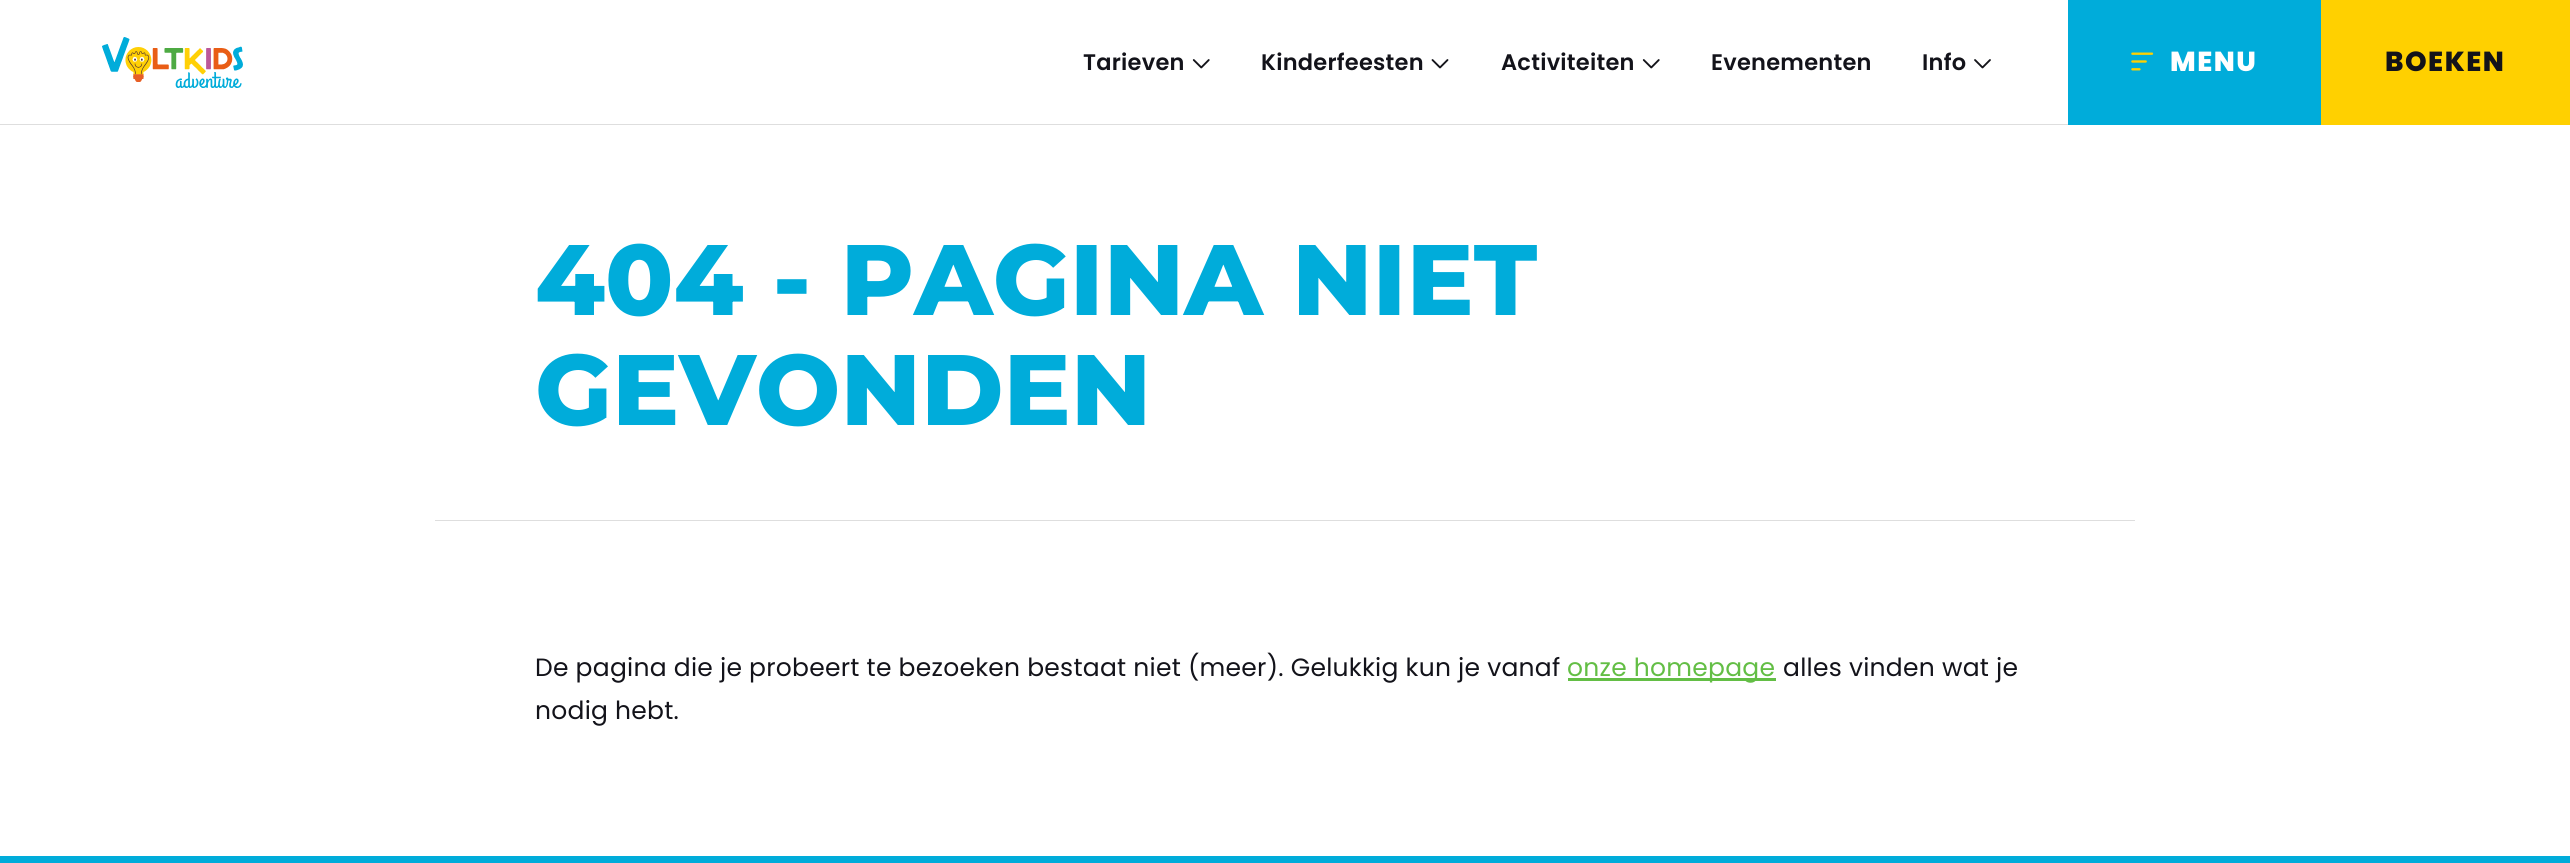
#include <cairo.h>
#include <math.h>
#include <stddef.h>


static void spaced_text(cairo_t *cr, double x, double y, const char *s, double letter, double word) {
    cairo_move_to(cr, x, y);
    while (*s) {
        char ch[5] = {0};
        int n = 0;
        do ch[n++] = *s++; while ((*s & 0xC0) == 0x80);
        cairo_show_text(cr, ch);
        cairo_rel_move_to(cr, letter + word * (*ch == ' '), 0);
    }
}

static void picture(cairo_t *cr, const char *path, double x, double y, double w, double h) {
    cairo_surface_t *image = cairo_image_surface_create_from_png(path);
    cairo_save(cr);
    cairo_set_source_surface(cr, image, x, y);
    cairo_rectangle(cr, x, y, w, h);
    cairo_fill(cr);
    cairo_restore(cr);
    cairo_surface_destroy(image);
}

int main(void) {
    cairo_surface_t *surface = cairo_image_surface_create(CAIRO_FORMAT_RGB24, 2570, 863);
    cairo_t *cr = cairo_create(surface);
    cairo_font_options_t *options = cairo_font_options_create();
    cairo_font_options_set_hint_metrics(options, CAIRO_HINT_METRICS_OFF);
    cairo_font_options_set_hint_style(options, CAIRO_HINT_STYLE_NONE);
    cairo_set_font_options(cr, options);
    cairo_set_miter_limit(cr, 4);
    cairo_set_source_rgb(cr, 1, 1, 1);
    cairo_paint(cr);
    cairo_set_source_rgb(cr, 0.871, 0.871, 0.871);
    cairo_rectangle(cr, 0, 124, 2068, 1);
    cairo_fill(cr);
    picture(cr, "img1.png", 102, 37, 141, 51);
    cairo_select_font_face(cr, "Poppins SemiBold", CAIRO_FONT_SLANT_NORMAL, CAIRO_FONT_WEIGHT_NORMAL);
    cairo_set_font_size(cr, 22.5);
    cairo_set_source_rgb(cr, 0.078, 0.078, 0.102);
    spaced_text(cr, 1083, 70, "Tarieven", 0.25, 0);
    picture(cr, "img2.png", 1192, 59, 18, 10);
    spaced_text(cr, 1261, 70, "Kinderfeesten", 0.25, 0);
    picture(cr, "img3.png", 1431, 59, 18, 10);
    spaced_text(cr, 1501, 70, "Activiteiten", 0.25, 0);
    picture(cr, "img2.png", 1642, 59, 18, 10);
    spaced_text(cr, 1711, 70, "Evenementen", 0.25, 0);
    spaced_text(cr, 1922, 70, "Info", 0.25, 0);
    picture(cr, "img4.png", 1974, 59, 17, 10);
    cairo_set_source_rgb(cr, 0, 0.675, 0.855);
    cairo_rectangle(cr, 2068, 0, 253, 125);
    cairo_fill(cr);
    picture(cr, "img5.png", 2131, 52, 23, 19);
    cairo_select_font_face(cr, "Poppins ExtraBold", CAIRO_FONT_SLANT_NORMAL, CAIRO_FONT_WEIGHT_NORMAL);
    cairo_set_font_size(cr, 27.5);
    cairo_set_source_rgb(cr, 1, 1, 1);
    spaced_text(cr, 2170, 71, "MENU", 1.5, 0);
    cairo_set_source_rgb(cr, 1, 0.816, 0);
    cairo_rectangle(cr, 2321, 0, 249, 125);
    cairo_fill(cr);
    cairo_set_source_rgb(cr, 0.078, 0.078, 0.102);
    spaced_text(cr, 2385, 71, "BOEKEN", 1.5, 0);
    cairo_set_source_rgb(cr, 0.871, 0.871, 0.871);
    cairo_rectangle(cr, 435, 520, 1700, 1);
    cairo_fill(cr);
    cairo_select_font_face(cr, "Montserrat Thin", CAIRO_FONT_SLANT_NORMAL, CAIRO_FONT_WEIGHT_NORMAL);
    cairo_set_font_size(cr, 100);
    cairo_set_source_rgb(cr, 0, 0.675, 0.855);
    cairo_move_to(cr, 535, 315);
    cairo_show_text(cr, "404 - PAGINA NIET");
    cairo_move_to(cr, 535, 425);
    cairo_show_text(cr, "GEVONDEN");
    cairo_select_font_face(cr, "Poppins", CAIRO_FONT_SLANT_NORMAL, CAIRO_FONT_WEIGHT_NORMAL);
    cairo_set_font_size(cr, 25);
    cairo_set_source_rgb(cr, 0.078, 0.078, 0.102);
    spaced_text(cr, 535, 676, "De pagina die je probeert te bezoeken bestaat niet (meer). Gelukkig kun je vanaf", 0.25, 0);
    cairo_set_source_rgb(cr, 0.388, 0.745, 0.271);
    cairo_rectangle(cr, 1568, 678, 208, 3);
    cairo_fill(cr);
    spaced_text(cr, 1567, 676, "onze homepage", 0.25, 0);
    cairo_set_source_rgb(cr, 0.078, 0.078, 0.102);
    spaced_text(cr, 1783, 676, "alles vinden wat je", 0.25, 0);
    spaced_text(cr, 535, 719, "nodig hebt.", 0.25, 0);
    cairo_set_source_rgb(cr, 0, 0.675, 0.855);
    cairo_rectangle(cr, 0, 856, 2570, 7);
    cairo_fill(cr);
    cairo_surface_write_to_png(surface, "page.png");
    cairo_font_options_destroy(options);
    cairo_destroy(cr);
    cairo_surface_destroy(surface);
    return 0;
}
